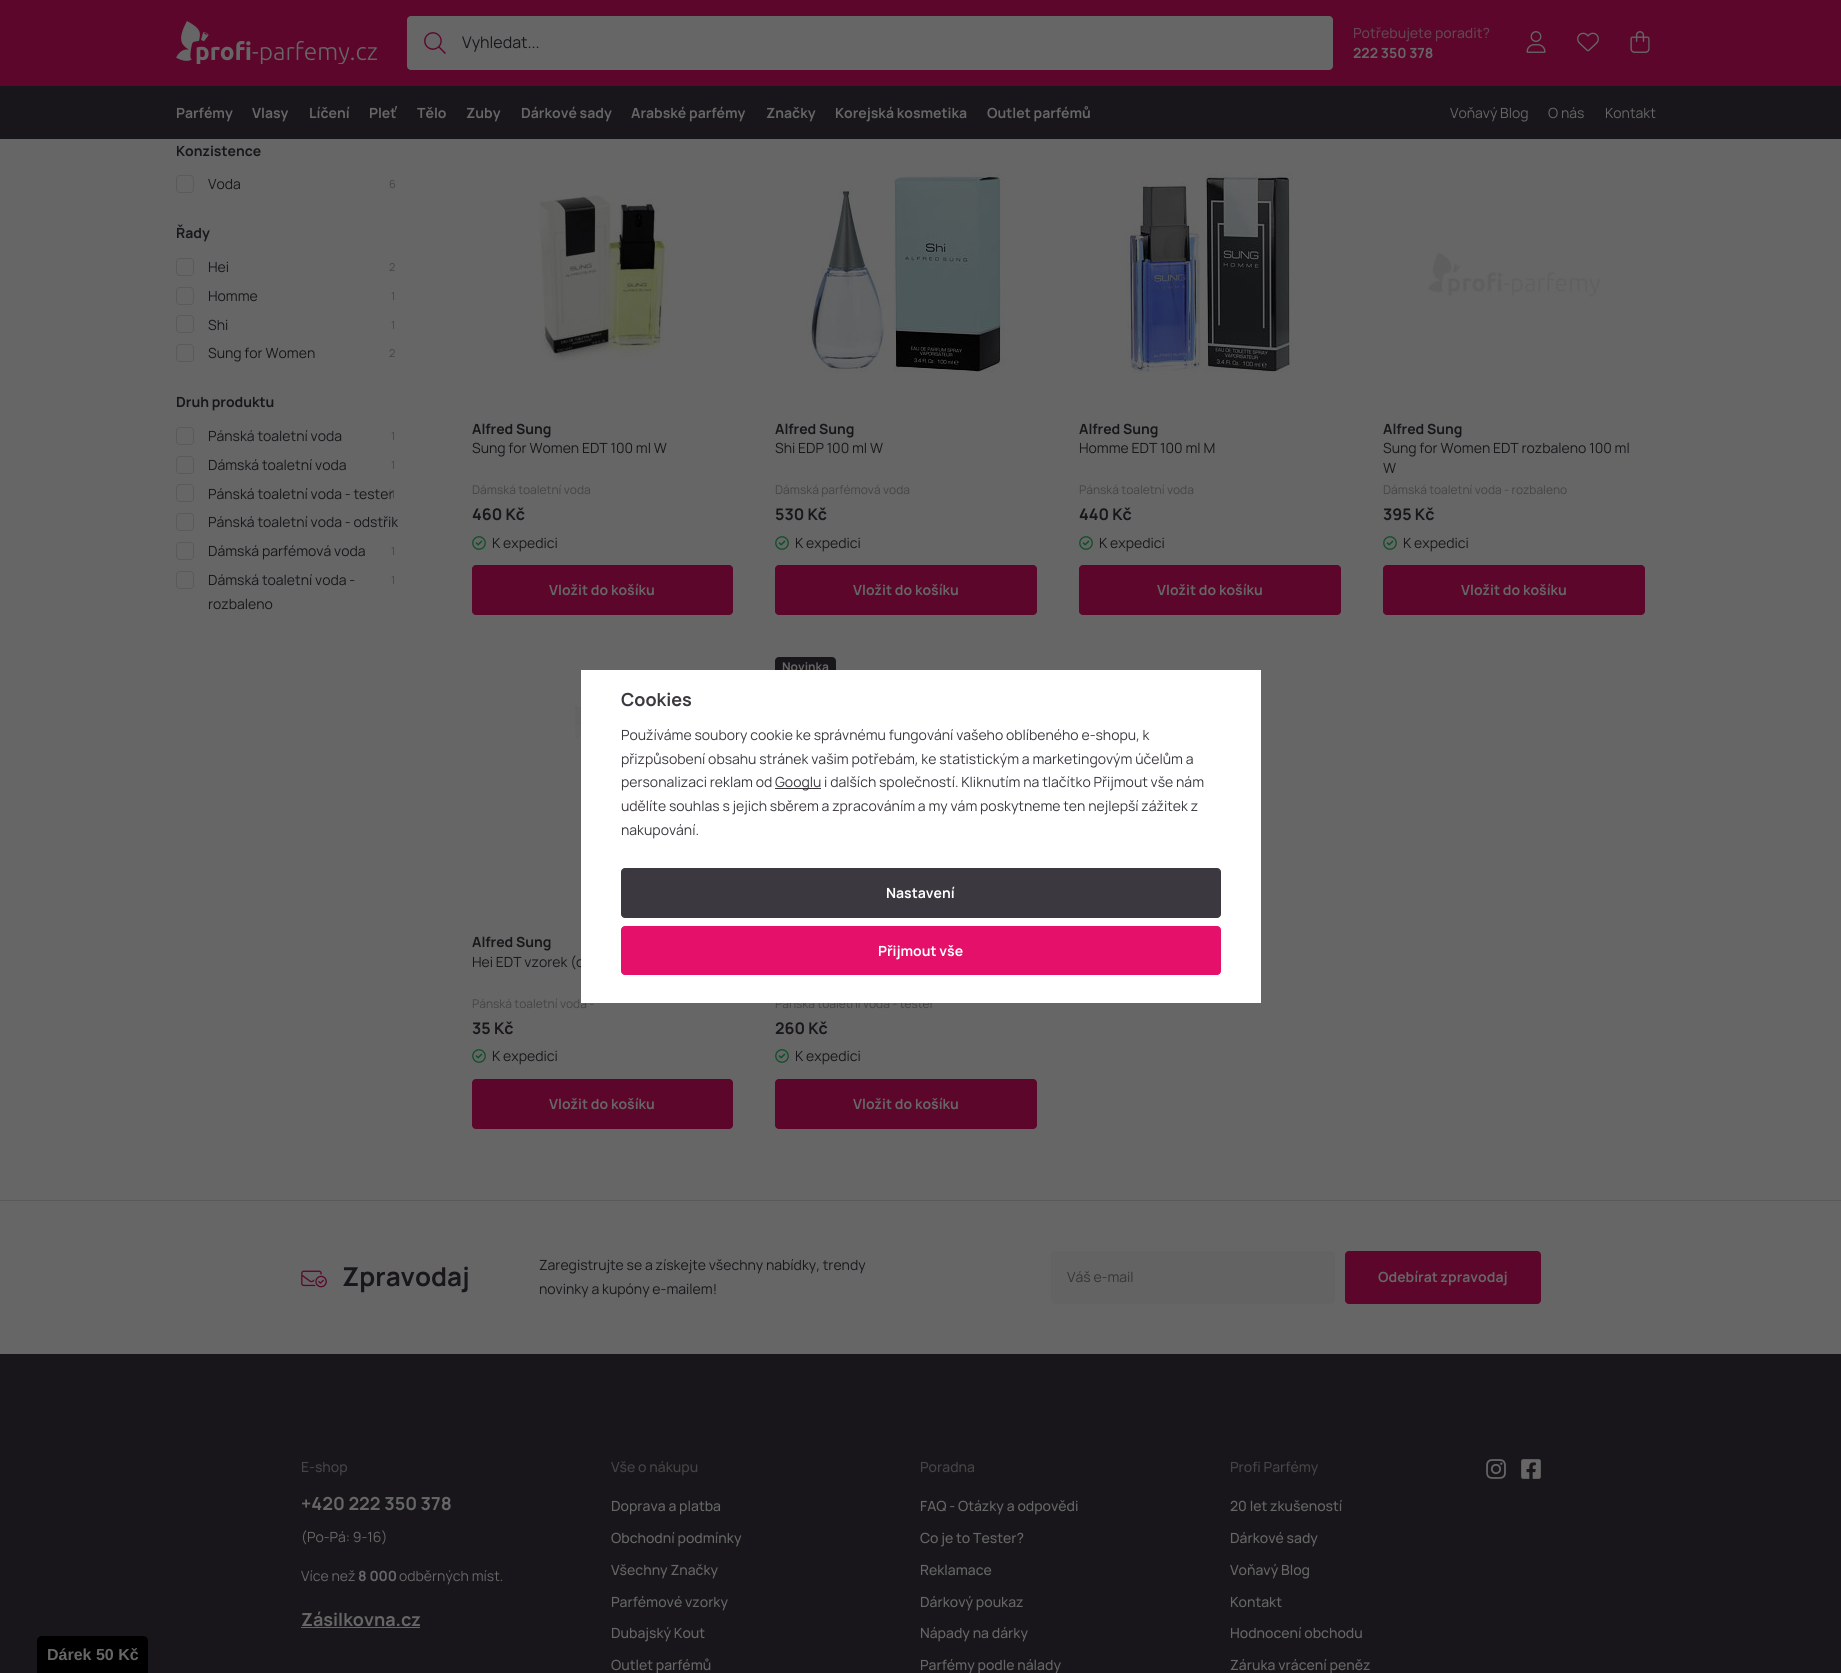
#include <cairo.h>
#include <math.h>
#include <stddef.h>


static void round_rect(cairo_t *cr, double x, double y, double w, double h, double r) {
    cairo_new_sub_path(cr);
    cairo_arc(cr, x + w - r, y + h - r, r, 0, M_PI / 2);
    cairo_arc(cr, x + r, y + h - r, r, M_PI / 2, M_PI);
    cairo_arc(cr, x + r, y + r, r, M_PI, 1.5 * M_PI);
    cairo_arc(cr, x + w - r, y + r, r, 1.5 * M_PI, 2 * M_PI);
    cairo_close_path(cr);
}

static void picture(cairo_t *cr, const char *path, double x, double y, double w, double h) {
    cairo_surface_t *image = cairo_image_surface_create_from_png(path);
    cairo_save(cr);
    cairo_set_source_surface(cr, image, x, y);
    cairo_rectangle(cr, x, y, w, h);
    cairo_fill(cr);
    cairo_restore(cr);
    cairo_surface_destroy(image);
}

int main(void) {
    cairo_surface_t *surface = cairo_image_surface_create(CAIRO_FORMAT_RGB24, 1841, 1673);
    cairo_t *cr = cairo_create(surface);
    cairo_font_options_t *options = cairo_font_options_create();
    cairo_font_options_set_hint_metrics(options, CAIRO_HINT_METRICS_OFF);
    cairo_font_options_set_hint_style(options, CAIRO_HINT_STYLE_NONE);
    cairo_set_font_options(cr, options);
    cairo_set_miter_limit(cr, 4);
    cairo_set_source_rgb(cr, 0.4, 0.4, 0.4);
    cairo_paint(cr);
    cairo_set_source_rgb(cr, 0.357, 0.024, 0.165);
    cairo_rectangle(cr, 0, 0, 1841, 86);
    cairo_fill(cr);
    picture(cr, "img1.png", 176, 21, 201, 43);
    cairo_set_source_rgb(cr, 0.4, 0.4, 0.4);
    round_rect(cr, 407, 16, 926, 54, 4);
    cairo_fill(cr);
    picture(cr, "img2.png", 424, 32, 22, 22);
    cairo_select_font_face(cr, "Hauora", CAIRO_FONT_SLANT_NORMAL, CAIRO_FONT_WEIGHT_NORMAL);
    cairo_set_font_size(cr, 16);
    cairo_set_source_rgb(cr, 0.094, 0.086, 0.102);
    cairo_move_to(cr, 462, 48);
    cairo_show_text(cr, "Vyhledat...");
    cairo_select_font_face(cr, "Hauora Medium", CAIRO_FONT_SLANT_NORMAL, CAIRO_FONT_WEIGHT_NORMAL);
    cairo_set_font_size(cr, 14);
    cairo_set_source_rgb(cr, 0.384, 0.271, 0.318);
    cairo_move_to(cr, 1353, 38);
    cairo_show_text(cr, "Potřebujete poradit?");
    cairo_select_font_face(cr, "Hauora", CAIRO_FONT_SLANT_NORMAL, CAIRO_FONT_WEIGHT_BOLD);
    cairo_set_source_rgb(cr, 0.4, 0.4, 0.4);
    cairo_move_to(cr, 1353, 58);
    cairo_show_text(cr, "222 350 378");
    picture(cr, "img3.png", 1526, 31, 20, 22);
    picture(cr, "img4.png", 1577, 32, 22, 20);
    picture(cr, "img5.png", 1630, 31, 20, 22);
    cairo_set_source_rgb(cr, 0.094, 0.086, 0.102);
    cairo_rectangle(cr, 0, 86, 1841, 53);
    cairo_fill(cr);
    cairo_set_source_rgb(cr, 0.4, 0.4, 0.4);
    cairo_move_to(cr, 176, 118);
    cairo_show_text(cr, "Parfémy");
    cairo_move_to(cr, 252, 118);
    cairo_show_text(cr, "Vlasy");
    cairo_move_to(cr, 309, 118);
    cairo_show_text(cr, "Líčení");
    cairo_move_to(cr, 369, 118);
    cairo_show_text(cr, "Pleť");
    cairo_move_to(cr, 417, 118);
    cairo_show_text(cr, "Tělo");
    cairo_move_to(cr, 466, 118);
    cairo_show_text(cr, "Zuby");
    cairo_move_to(cr, 521, 118);
    cairo_show_text(cr, "Dárkové sady");
    cairo_move_to(cr, 631, 118);
    cairo_show_text(cr, "Arabské parfémy");
    cairo_move_to(cr, 766, 118);
    cairo_show_text(cr, "Značky");
    cairo_move_to(cr, 835, 118);
    cairo_show_text(cr, "Korejská kosmetika");
    cairo_move_to(cr, 987, 118);
    cairo_show_text(cr, "Outlet parfémů");
    cairo_select_font_face(cr, "Hauora", CAIRO_FONT_SLANT_NORMAL, CAIRO_FONT_WEIGHT_NORMAL);
    cairo_move_to(cr, 1450, 118);
    cairo_show_text(cr, "Voňavý Blog");
    cairo_move_to(cr, 1548, 118);
    cairo_show_text(cr, "O nás");
    cairo_move_to(cr, 1605, 118);
    cairo_show_text(cr, "Kontakt");
    cairo_select_font_face(cr, "Hauora", CAIRO_FONT_SLANT_NORMAL, CAIRO_FONT_WEIGHT_BOLD);
    cairo_set_source_rgb(cr, 0.094, 0.086, 0.102);
    cairo_move_to(cr, 176, 156);
    cairo_show_text(cr, "Konzistence");
    round_rect(cr, 176.5, 175.5, 17, 17, 3.5);
    cairo_set_source_rgb(cr, 0.353, 0.353, 0.353);
    cairo_set_line_width(cr, 1);
    cairo_stroke(cr);
    cairo_select_font_face(cr, "Hauora", CAIRO_FONT_SLANT_NORMAL, CAIRO_FONT_WEIGHT_NORMAL);
    cairo_set_source_rgb(cr, 0.094, 0.086, 0.102);
    cairo_move_to(cr, 208, 189);
    cairo_show_text(cr, "Voda");
    cairo_set_font_size(cr, 11);
    cairo_set_source_rgb(cr, 0.267, 0.263, 0.271);
    cairo_move_to(cr, 389, 188);
    cairo_show_text(cr, "6");
    cairo_select_font_face(cr, "Hauora", CAIRO_FONT_SLANT_NORMAL, CAIRO_FONT_WEIGHT_BOLD);
    cairo_set_font_size(cr, 14);
    cairo_set_source_rgb(cr, 0.094, 0.086, 0.102);
    cairo_move_to(cr, 176, 238);
    cairo_show_text(cr, "Řady");
    round_rect(cr, 176.5, 258.5, 17, 17, 3.5);
    cairo_set_source_rgb(cr, 0.353, 0.353, 0.353);
    cairo_stroke(cr);
    cairo_select_font_face(cr, "Hauora", CAIRO_FONT_SLANT_NORMAL, CAIRO_FONT_WEIGHT_NORMAL);
    cairo_set_source_rgb(cr, 0.094, 0.086, 0.102);
    cairo_move_to(cr, 208, 272);
    cairo_show_text(cr, "Hei");
    cairo_set_font_size(cr, 11);
    cairo_set_source_rgb(cr, 0.267, 0.263, 0.271);
    cairo_move_to(cr, 389, 271);
    cairo_show_text(cr, "2");
    round_rect(cr, 176.5, 287.5, 17, 17, 3.5);
    cairo_set_source_rgb(cr, 0.353, 0.353, 0.353);
    cairo_stroke(cr);
    cairo_set_font_size(cr, 14);
    cairo_set_source_rgb(cr, 0.094, 0.086, 0.102);
    cairo_move_to(cr, 208, 301);
    cairo_show_text(cr, "Homme");
    cairo_set_font_size(cr, 11);
    cairo_set_source_rgb(cr, 0.267, 0.263, 0.271);
    cairo_move_to(cr, 391, 300);
    cairo_show_text(cr, "1");
    round_rect(cr, 176.5, 315.5, 17, 17, 3.5);
    cairo_set_source_rgb(cr, 0.353, 0.353, 0.353);
    cairo_stroke(cr);
    cairo_set_font_size(cr, 14);
    cairo_set_source_rgb(cr, 0.094, 0.086, 0.102);
    cairo_move_to(cr, 208, 330);
    cairo_show_text(cr, "Shi");
    cairo_set_font_size(cr, 11);
    cairo_set_source_rgb(cr, 0.267, 0.263, 0.271);
    cairo_move_to(cr, 391, 329);
    cairo_show_text(cr, "1");
    round_rect(cr, 176.5, 344.5, 17, 17, 3.5);
    cairo_set_source_rgb(cr, 0.353, 0.353, 0.353);
    cairo_stroke(cr);
    cairo_set_font_size(cr, 14);
    cairo_set_source_rgb(cr, 0.094, 0.086, 0.102);
    cairo_move_to(cr, 208, 358);
    cairo_show_text(cr, "Sung for Women");
    cairo_set_font_size(cr, 11);
    cairo_set_source_rgb(cr, 0.267, 0.263, 0.271);
    cairo_move_to(cr, 389, 357);
    cairo_show_text(cr, "2");
    cairo_select_font_face(cr, "Hauora", CAIRO_FONT_SLANT_NORMAL, CAIRO_FONT_WEIGHT_BOLD);
    cairo_set_font_size(cr, 14);
    cairo_set_source_rgb(cr, 0.094, 0.086, 0.102);
    cairo_move_to(cr, 176, 407);
    cairo_show_text(cr, "Druh produktu");
    round_rect(cr, 176.5, 427.5, 17, 17, 3.5);
    cairo_set_source_rgb(cr, 0.353, 0.353, 0.353);
    cairo_stroke(cr);
    cairo_select_font_face(cr, "Hauora", CAIRO_FONT_SLANT_NORMAL, CAIRO_FONT_WEIGHT_NORMAL);
    cairo_set_source_rgb(cr, 0.094, 0.086, 0.102);
    cairo_move_to(cr, 208, 441);
    cairo_show_text(cr, "Pánská toaletní voda");
    cairo_set_font_size(cr, 11);
    cairo_set_source_rgb(cr, 0.267, 0.263, 0.271);
    cairo_move_to(cr, 391, 440);
    cairo_show_text(cr, "1");
    round_rect(cr, 176.5, 456.5, 17, 17, 3.5);
    cairo_set_source_rgb(cr, 0.353, 0.353, 0.353);
    cairo_stroke(cr);
    cairo_set_font_size(cr, 14);
    cairo_set_source_rgb(cr, 0.094, 0.086, 0.102);
    cairo_move_to(cr, 208, 470);
    cairo_show_text(cr, "Dámská toaletní voda");
    cairo_set_font_size(cr, 11);
    cairo_set_source_rgb(cr, 0.267, 0.263, 0.271);
    cairo_move_to(cr, 391, 469);
    cairo_show_text(cr, "1");
    round_rect(cr, 176.5, 484.5, 17, 17, 3.5);
    cairo_set_source_rgb(cr, 0.353, 0.353, 0.353);
    cairo_stroke(cr);
    cairo_set_font_size(cr, 14);
    cairo_set_source_rgb(cr, 0.094, 0.086, 0.102);
    cairo_move_to(cr, 208, 499);
    cairo_show_text(cr, "Pánská toaletní voda - tester");
    cairo_set_font_size(cr, 11);
    cairo_set_source_rgb(cr, 0.329, 0.329, 0.329);
    cairo_move_to(cr, 387, 498);
    cairo_show_text(cr, "(");
    cairo_set_source_rgb(cr, 0.267, 0.263, 0.271);
    cairo_move_to(cr, 391, 498);
    cairo_show_text(cr, "1");
    round_rect(cr, 176.5, 513.5, 17, 17, 3.5);
    cairo_set_source_rgb(cr, 0.353, 0.353, 0.353);
    cairo_stroke(cr);
    cairo_set_font_size(cr, 14);
    cairo_set_source_rgb(cr, 0.094, 0.086, 0.102);
    cairo_move_to(cr, 208, 527);
    cairo_show_text(cr, "Pánská toaletní voda - odstřik");
    cairo_set_font_size(cr, 11);
    cairo_set_source_rgb(cr, 0.267, 0.263, 0.271);
    cairo_move_to(cr, 391, 526);
    cairo_show_text(cr, "1");
    round_rect(cr, 176.5, 542.5, 17, 17, 3.5);
    cairo_set_source_rgb(cr, 0.353, 0.353, 0.353);
    cairo_stroke(cr);
    cairo_set_font_size(cr, 14);
    cairo_set_source_rgb(cr, 0.094, 0.086, 0.102);
    cairo_move_to(cr, 208, 556);
    cairo_show_text(cr, "Dámská parfémová voda");
    cairo_set_font_size(cr, 11);
    cairo_set_source_rgb(cr, 0.267, 0.263, 0.271);
    cairo_move_to(cr, 391, 555);
    cairo_show_text(cr, "1");
    round_rect(cr, 176.5, 571.5, 17, 17, 3.5);
    cairo_set_source_rgb(cr, 0.353, 0.353, 0.353);
    cairo_stroke(cr);
    cairo_set_font_size(cr, 14);
    cairo_set_source_rgb(cr, 0.094, 0.086, 0.102);
    cairo_move_to(cr, 208, 585);
    cairo_show_text(cr, "Dámská toaletní voda -");
    cairo_set_font_size(cr, 11);
    cairo_set_source_rgb(cr, 0.267, 0.263, 0.271);
    cairo_move_to(cr, 391, 584);
    cairo_show_text(cr, "1");
    cairo_set_font_size(cr, 14);
    cairo_set_source_rgb(cr, 0.094, 0.086, 0.102);
    cairo_move_to(cr, 208, 609);
    cairo_show_text(cr, "rozbaleno");
    picture(cr, "img6.png", 539, 195, 130, 166);
    cairo_select_font_face(cr, "Hauora", CAIRO_FONT_SLANT_NORMAL, CAIRO_FONT_WEIGHT_BOLD);
    cairo_move_to(cr, 472, 434);
    cairo_show_text(cr, "Alfred Sung");
    cairo_select_font_face(cr, "Hauora", CAIRO_FONT_SLANT_NORMAL, CAIRO_FONT_WEIGHT_NORMAL);
    cairo_move_to(cr, 472, 453);
    cairo_show_text(cr, "Sung for Women EDT 100 ml W");
    cairo_set_font_size(cr, 12);
    cairo_set_source_rgb(cr, 0.267, 0.263, 0.271);
    cairo_move_to(cr, 472, 494);
    cairo_show_text(cr, "Dámská toaletní voda");
    cairo_select_font_face(cr, "Hauora", CAIRO_FONT_SLANT_NORMAL, CAIRO_FONT_WEIGHT_BOLD);
    cairo_set_font_size(cr, 16);
    cairo_set_source_rgb(cr, 0.094, 0.086, 0.102);
    cairo_move_to(cr, 472, 520);
    cairo_show_text(cr, "460 Kč");
    picture(cr, "img7.png", 472, 536, 14, 14);
    cairo_select_font_face(cr, "Hauora", CAIRO_FONT_SLANT_NORMAL, CAIRO_FONT_WEIGHT_NORMAL);
    cairo_set_font_size(cr, 14);
    cairo_move_to(cr, 492, 548);
    cairo_show_text(cr, "K expedici");
    cairo_set_source_rgb(cr, 0.357, 0.024, 0.165);
    round_rect(cr, 472.5, 565.5, 260, 49, 3.5);
    cairo_fill_preserve(cr);
    cairo_stroke(cr);
    cairo_select_font_face(cr, "Hauora", CAIRO_FONT_SLANT_NORMAL, CAIRO_FONT_WEIGHT_BOLD);
    cairo_set_source_rgb(cr, 0.4, 0.4, 0.4);
    cairo_move_to(cr, 549, 595);
    cairo_show_text(cr, "Vložit do košíku");
    picture(cr, "img8.png", 806, 173, 199, 200);
    cairo_set_source_rgb(cr, 0.094, 0.086, 0.102);
    cairo_move_to(cr, 775, 434);
    cairo_show_text(cr, "Alfred Sung");
    cairo_select_font_face(cr, "Hauora", CAIRO_FONT_SLANT_NORMAL, CAIRO_FONT_WEIGHT_NORMAL);
    cairo_move_to(cr, 775, 453);
    cairo_show_text(cr, "Shi EDP 100 ml W");
    cairo_set_font_size(cr, 12);
    cairo_set_source_rgb(cr, 0.267, 0.263, 0.271);
    cairo_move_to(cr, 775, 494);
    cairo_show_text(cr, "Dámská parfémová voda");
    cairo_select_font_face(cr, "Hauora", CAIRO_FONT_SLANT_NORMAL, CAIRO_FONT_WEIGHT_BOLD);
    cairo_set_font_size(cr, 16);
    cairo_set_source_rgb(cr, 0.094, 0.086, 0.102);
    cairo_move_to(cr, 775, 520);
    cairo_show_text(cr, "530 Kč");
    picture(cr, "img7.png", 775, 536, 14, 14);
    cairo_select_font_face(cr, "Hauora", CAIRO_FONT_SLANT_NORMAL, CAIRO_FONT_WEIGHT_NORMAL);
    cairo_set_font_size(cr, 14);
    cairo_move_to(cr, 795, 548);
    cairo_show_text(cr, "K expedici");
    cairo_set_source_rgb(cr, 0.357, 0.024, 0.165);
    round_rect(cr, 775.5, 565.5, 261, 49, 3.5);
    cairo_fill_preserve(cr);
    cairo_stroke(cr);
    cairo_select_font_face(cr, "Hauora", CAIRO_FONT_SLANT_NORMAL, CAIRO_FONT_WEIGHT_BOLD);
    cairo_set_source_rgb(cr, 0.4, 0.4, 0.4);
    cairo_move_to(cr, 853, 595);
    cairo_show_text(cr, "Vložit do košíku");
    picture(cr, "img9.png", 1125, 173, 168, 200);
    cairo_set_source_rgb(cr, 0.094, 0.086, 0.102);
    cairo_move_to(cr, 1079, 434);
    cairo_show_text(cr, "Alfred Sung");
    cairo_select_font_face(cr, "Hauora", CAIRO_FONT_SLANT_NORMAL, CAIRO_FONT_WEIGHT_NORMAL);
    cairo_move_to(cr, 1079, 453);
    cairo_show_text(cr, "Homme EDT 100 ml M");
    cairo_set_font_size(cr, 12);
    cairo_set_source_rgb(cr, 0.267, 0.263, 0.271);
    cairo_move_to(cr, 1079, 494);
    cairo_show_text(cr, "Pánská toaletní voda");
    cairo_select_font_face(cr, "Hauora", CAIRO_FONT_SLANT_NORMAL, CAIRO_FONT_WEIGHT_BOLD);
    cairo_set_font_size(cr, 16);
    cairo_set_source_rgb(cr, 0.094, 0.086, 0.102);
    cairo_move_to(cr, 1079, 520);
    cairo_show_text(cr, "440 Kč");
    picture(cr, "img7.png", 1079, 536, 14, 14);
    cairo_select_font_face(cr, "Hauora", CAIRO_FONT_SLANT_NORMAL, CAIRO_FONT_WEIGHT_NORMAL);
    cairo_set_font_size(cr, 14);
    cairo_move_to(cr, 1099, 548);
    cairo_show_text(cr, "K expedici");
    cairo_set_source_rgb(cr, 0.357, 0.024, 0.165);
    round_rect(cr, 1079.5, 565.5, 261, 49, 3.5);
    cairo_fill_preserve(cr);
    cairo_stroke(cr);
    cairo_select_font_face(cr, "Hauora", CAIRO_FONT_SLANT_NORMAL, CAIRO_FONT_WEIGHT_BOLD);
    cairo_set_source_rgb(cr, 0.4, 0.4, 0.4);
    cairo_move_to(cr, 1157, 595);
    cairo_show_text(cr, "Vložit do košíku");
    picture(cr, "img10.png", 1428, 253, 174, 46);
    cairo_set_source_rgb(cr, 0.094, 0.086, 0.102);
    cairo_move_to(cr, 1383, 434);
    cairo_show_text(cr, "Alfred Sung");
    cairo_select_font_face(cr, "Hauora", CAIRO_FONT_SLANT_NORMAL, CAIRO_FONT_WEIGHT_NORMAL);
    cairo_move_to(cr, 1383, 453);
    cairo_show_text(cr, "Sung for Women EDT rozbaleno 100 ml");
    cairo_move_to(cr, 1383, 473);
    cairo_show_text(cr, "W");
    cairo_set_font_size(cr, 12);
    cairo_set_source_rgb(cr, 0.267, 0.263, 0.271);
    cairo_move_to(cr, 1383, 494);
    cairo_show_text(cr, "Dámská toaletní voda - rozbaleno");
    cairo_select_font_face(cr, "Hauora", CAIRO_FONT_SLANT_NORMAL, CAIRO_FONT_WEIGHT_BOLD);
    cairo_set_font_size(cr, 16);
    cairo_set_source_rgb(cr, 0.094, 0.086, 0.102);
    cairo_move_to(cr, 1383, 520);
    cairo_show_text(cr, "395 Kč");
    picture(cr, "img7.png", 1383, 536, 14, 14);
    cairo_select_font_face(cr, "Hauora", CAIRO_FONT_SLANT_NORMAL, CAIRO_FONT_WEIGHT_NORMAL);
    cairo_set_font_size(cr, 14);
    cairo_move_to(cr, 1403, 548);
    cairo_show_text(cr, "K expedici");
    cairo_set_source_rgb(cr, 0.357, 0.024, 0.165);
    round_rect(cr, 1383.5, 565.5, 261, 49, 3.5);
    cairo_fill_preserve(cr);
    cairo_stroke(cr);
    cairo_select_font_face(cr, "Hauora", CAIRO_FONT_SLANT_NORMAL, CAIRO_FONT_WEIGHT_BOLD);
    cairo_set_source_rgb(cr, 0.4, 0.4, 0.4);
    cairo_move_to(cr, 1461, 595);
    cairo_show_text(cr, "Vložit do košíku");
    picture(cr, "img11.png", 575, 694, 6, 188);
    cairo_set_source_rgb(cr, 0.094, 0.086, 0.102);
    cairo_move_to(cr, 472, 947);
    cairo_show_text(cr, "Alfred Sung");
    cairo_select_font_face(cr, "Hauora", CAIRO_FONT_SLANT_NORMAL, CAIRO_FONT_WEIGHT_NORMAL);
    cairo_move_to(cr, 472, 967);
    cairo_show_text(cr, "Hei EDT vzorek (o");
    cairo_set_font_size(cr, 12);
    cairo_set_source_rgb(cr, 0.267, 0.263, 0.271);
    cairo_move_to(cr, 472, 1008);
    cairo_show_text(cr, "Pánská toaletní voda -");
    cairo_select_font_face(cr, "Hauora", CAIRO_FONT_SLANT_NORMAL, CAIRO_FONT_WEIGHT_BOLD);
    cairo_set_font_size(cr, 16);
    cairo_set_source_rgb(cr, 0.094, 0.086, 0.102);
    cairo_move_to(cr, 472, 1034);
    cairo_show_text(cr, "35 Kč");
    picture(cr, "img7.png", 472, 1049, 14, 14);
    cairo_select_font_face(cr, "Hauora", CAIRO_FONT_SLANT_NORMAL, CAIRO_FONT_WEIGHT_NORMAL);
    cairo_set_font_size(cr, 14);
    cairo_move_to(cr, 492, 1061);
    cairo_show_text(cr, "K expedici");
    cairo_set_source_rgb(cr, 0.357, 0.024, 0.165);
    round_rect(cr, 472.5, 1079.5, 260, 49, 3.5);
    cairo_fill_preserve(cr);
    cairo_stroke(cr);
    cairo_select_font_face(cr, "Hauora", CAIRO_FONT_SLANT_NORMAL, CAIRO_FONT_WEIGHT_BOLD);
    cairo_set_source_rgb(cr, 0.4, 0.4, 0.4);
    cairo_move_to(cr, 549, 1109);
    cairo_show_text(cr, "Vložit do košíku");
    cairo_set_source_rgb(cr, 0.094, 0.086, 0.102);
    round_rect(cr, 775, 657, 61, 21, 4);
    cairo_fill(cr);
    cairo_set_font_size(cr, 12);
    cairo_set_source_rgb(cr, 0.4, 0.4, 0.4);
    cairo_move_to(cr, 782, 671);
    cairo_show_text(cr, "Novinka");
    cairo_select_font_face(cr, "Hauora", CAIRO_FONT_SLANT_NORMAL, CAIRO_FONT_WEIGHT_NORMAL);
    cairo_set_source_rgb(cr, 0.267, 0.263, 0.271);
    cairo_move_to(cr, 775, 1008);
    cairo_show_text(cr, "Pánská toaletní voda - tester");
    cairo_select_font_face(cr, "Hauora", CAIRO_FONT_SLANT_NORMAL, CAIRO_FONT_WEIGHT_BOLD);
    cairo_set_font_size(cr, 16);
    cairo_set_source_rgb(cr, 0.094, 0.086, 0.102);
    cairo_move_to(cr, 775, 1034);
    cairo_show_text(cr, "260 Kč");
    picture(cr, "img7.png", 775, 1049, 14, 14);
    cairo_select_font_face(cr, "Hauora", CAIRO_FONT_SLANT_NORMAL, CAIRO_FONT_WEIGHT_NORMAL);
    cairo_set_font_size(cr, 14);
    cairo_move_to(cr, 795, 1061);
    cairo_show_text(cr, "K expedici");
    cairo_set_source_rgb(cr, 0.357, 0.024, 0.165);
    round_rect(cr, 775.5, 1079.5, 261, 49, 3.5);
    cairo_fill_preserve(cr);
    cairo_stroke(cr);
    cairo_select_font_face(cr, "Hauora", CAIRO_FONT_SLANT_NORMAL, CAIRO_FONT_WEIGHT_BOLD);
    cairo_set_source_rgb(cr, 0.4, 0.4, 0.4);
    cairo_move_to(cr, 853, 1109);
    cairo_show_text(cr, "Vložit do košíku");
    cairo_set_source_rgb(cr, 1, 1, 1);
    cairo_rectangle(cr, 581, 670, 680, 333);
    cairo_fill(cr);
    cairo_set_font_size(cr, 18);
    cairo_set_source_rgb(cr, 0.235, 0.22, 0.251);
    cairo_move_to(cr, 621, 706);
    cairo_show_text(cr, "Cookies");
    cairo_select_font_face(cr, "Hauora", CAIRO_FONT_SLANT_NORMAL, CAIRO_FONT_WEIGHT_NORMAL);
    cairo_set_font_size(cr, 14);
    cairo_move_to(cr, 621, 740);
    cairo_show_text(cr, "Používáme soubory cookie ke správnému fungování vašeho oblíbeného e-shopu, k");
    cairo_move_to(cr, 621, 764);
    cairo_show_text(cr, "přizpůsobení obsahu stránek vašim potřebám, ke statistickým a marketingovým účelům a");
    cairo_move_to(cr, 621, 787);
    cairo_show_text(cr, "personalizaci reklam od");
    cairo_rectangle(cr, 775, 788, 46, 1);
    cairo_fill(cr);
    cairo_move_to(cr, 775, 787);
    cairo_show_text(cr, "Googlu i dalších společností. Kliknutím na tlačítko Přijmout vše nám");
    cairo_move_to(cr, 621, 811);
    cairo_show_text(cr, "udělíte souhlas s jejich sběrem a zpracováním a my vám poskytneme ten nejlepší zážitek z");
    cairo_move_to(cr, 621, 835);
    cairo_show_text(cr, "nakupování.");
    round_rect(cr, 621.5, 868.5, 599, 49, 3.5);
    cairo_fill_preserve(cr);
    cairo_stroke(cr);
    cairo_select_font_face(cr, "Hauora", CAIRO_FONT_SLANT_NORMAL, CAIRO_FONT_WEIGHT_BOLD);
    cairo_set_source_rgb(cr, 1, 1, 1);
    cairo_move_to(cr, 886, 898);
    cairo_show_text(cr, "Nastavení");
    cairo_set_source_rgb(cr, 0.894, 0.063, 0.412);
    round_rect(cr, 621.5, 926.5, 599, 48, 3.5);
    cairo_fill_preserve(cr);
    cairo_stroke(cr);
    cairo_set_source_rgb(cr, 1, 1, 1);
    cairo_move_to(cr, 878, 956);
    cairo_show_text(cr, "Přijmout vše");
    cairo_set_source_rgb(cr, 0.353, 0.353, 0.353);
    cairo_rectangle(cr, 0, 1200, 1841, 1);
    cairo_fill(cr);
    picture(cr, "img12.png", 301, 1270, 26, 18);
    cairo_set_font_size(cr, 26);
    cairo_set_source_rgb(cr, 0.094, 0.086, 0.102);
    cairo_move_to(cr, 342, 1286);
    cairo_show_text(cr, "Zpravodaj");
    cairo_select_font_face(cr, "Hauora", CAIRO_FONT_SLANT_NORMAL, CAIRO_FONT_WEIGHT_NORMAL);
    cairo_set_font_size(cr, 14);
    cairo_move_to(cr, 539, 1270);
    cairo_show_text(cr, "Zaregistrujte se a získejte všechny nabídky, trendy");
    cairo_move_to(cr, 539, 1294);
    cairo_show_text(cr, "novinky a kupóny e-mailem!");
    cairo_set_source_rgb(cr, 0.388, 0.388, 0.388);
    round_rect(cr, 1051, 1251, 284, 53, 4);
    cairo_fill(cr);
    cairo_set_source_rgb(cr, 0.204, 0.204, 0.204);
    cairo_move_to(cr, 1067, 1282);
    cairo_show_text(cr, "Váš e-mail");
    cairo_set_source_rgb(cr, 0.357, 0.024, 0.165);
    round_rect(cr, 1345.5, 1251.5, 195, 52, 3.5);
    cairo_fill_preserve(cr);
    cairo_stroke(cr);
    cairo_select_font_face(cr, "Hauora", CAIRO_FONT_SLANT_NORMAL, CAIRO_FONT_WEIGHT_BOLD);
    cairo_set_source_rgb(cr, 0.4, 0.4, 0.4);
    cairo_move_to(cr, 1378, 1282);
    cairo_show_text(cr, "Odebírat zpravodaj");
    cairo_set_source_rgb(cr, 0.094, 0.086, 0.102);
    cairo_rectangle(cr, 0, 1354, 1841, 319);
    cairo_fill(cr);
    cairo_set_source_rgb(cr, 0, 0, 0);
    cairo_new_path(cr);
    cairo_move_to(cr, 42, 1636);
    cairo_line_to(cr, 143, 1636);
    cairo_curve_to(cr, 146, 1636, 148, 1638, 148, 1641);
    cairo_line_to(cr, 148, 1673);
    cairo_line_to(cr, 37, 1673);
    cairo_line_to(cr, 37, 1641);
    cairo_curve_to(cr, 37, 1638, 39, 1636, 42, 1636);
    cairo_close_path(cr);
    cairo_fill(cr);
    cairo_select_font_face(cr, "Liberation Sans", CAIRO_FONT_SLANT_NORMAL, CAIRO_FONT_WEIGHT_BOLD);
    cairo_set_font_size(cr, 16);
    cairo_set_source_rgb(cr, 0.4, 0.4, 0.4);
    cairo_move_to(cr, 47, 1660);
    cairo_show_text(cr, "Dárek 50 Kč");
    cairo_select_font_face(cr, "Hauora Medium", CAIRO_FONT_SLANT_NORMAL, CAIRO_FONT_WEIGHT_NORMAL);
    cairo_set_font_size(cr, 14);
    cairo_set_source_rgb(cr, 0.267, 0.263, 0.271);
    cairo_move_to(cr, 301, 1472);
    cairo_show_text(cr, "E-shop");
    cairo_select_font_face(cr, "Hauora", CAIRO_FONT_SLANT_NORMAL, CAIRO_FONT_WEIGHT_BOLD);
    cairo_set_font_size(cr, 18);
    cairo_set_source_rgb(cr, 0.4, 0.4, 0.4);
    cairo_move_to(cr, 301, 1510);
    cairo_show_text(cr, "+420 222 350 378");
    cairo_select_font_face(cr, "Hauora", CAIRO_FONT_SLANT_NORMAL, CAIRO_FONT_WEIGHT_NORMAL);
    cairo_set_font_size(cr, 14);
    cairo_move_to(cr, 301, 1542);
    cairo_show_text(cr, "(Po-Pá: 9-16)");
    cairo_move_to(cr, 301, 1581);
    cairo_show_text(cr, "Více než");
    cairo_select_font_face(cr, "Hauora", CAIRO_FONT_SLANT_NORMAL, CAIRO_FONT_WEIGHT_BOLD);
    cairo_move_to(cr, 358, 1581);
    cairo_show_text(cr, "8 000");
    cairo_select_font_face(cr, "Hauora", CAIRO_FONT_SLANT_NORMAL, CAIRO_FONT_WEIGHT_NORMAL);
    cairo_move_to(cr, 399, 1581);
    cairo_show_text(cr, "odběrných míst.");
    cairo_select_font_face(cr, "Hauora", CAIRO_FONT_SLANT_NORMAL, CAIRO_FONT_WEIGHT_BOLD);
    cairo_set_font_size(cr, 18);
    cairo_move_to(cr, 301, 1626);
    cairo_show_text(cr, "Zásilkovna.cz");
    cairo_rectangle(cr, 301, 1627, 119, 1);
    cairo_fill(cr);
    cairo_select_font_face(cr, "Hauora Medium", CAIRO_FONT_SLANT_NORMAL, CAIRO_FONT_WEIGHT_NORMAL);
    cairo_set_font_size(cr, 14);
    cairo_set_source_rgb(cr, 0.267, 0.263, 0.271);
    cairo_move_to(cr, 611, 1472);
    cairo_show_text(cr, "Vše o nákupu");
    cairo_set_source_rgb(cr, 0.4, 0.4, 0.4);
    cairo_move_to(cr, 611, 1511);
    cairo_show_text(cr, "Doprava a platba");
    cairo_move_to(cr, 611, 1543);
    cairo_show_text(cr, "Obchodní podmínky");
    cairo_move_to(cr, 611, 1575);
    cairo_show_text(cr, "Všechny Značky");
    cairo_move_to(cr, 611, 1607);
    cairo_show_text(cr, "Parfémové vzorky");
    cairo_move_to(cr, 611, 1638);
    cairo_show_text(cr, "Dubajský Kout");
    cairo_move_to(cr, 611, 1670);
    cairo_show_text(cr, "Outlet parfémů");
    cairo_set_source_rgb(cr, 0.267, 0.263, 0.271);
    cairo_move_to(cr, 920, 1472);
    cairo_show_text(cr, "Poradna");
    cairo_set_source_rgb(cr, 0.4, 0.4, 0.4);
    cairo_move_to(cr, 920, 1511);
    cairo_show_text(cr, "FAQ - Otázky a odpovědi");
    cairo_move_to(cr, 920, 1543);
    cairo_show_text(cr, "Co je to Tester?");
    cairo_move_to(cr, 920, 1575);
    cairo_show_text(cr, "Reklamace");
    cairo_move_to(cr, 920, 1607);
    cairo_show_text(cr, "Dárkový poukaz");
    cairo_move_to(cr, 920, 1638);
    cairo_show_text(cr, "Nápady na dárky");
    cairo_move_to(cr, 920, 1670);
    cairo_show_text(cr, "Parfémy podle nálady");
    cairo_set_source_rgb(cr, 0.267, 0.263, 0.271);
    cairo_move_to(cr, 1230, 1472);
    cairo_show_text(cr, "Profi Parfémy");
    cairo_set_source_rgb(cr, 0.4, 0.4, 0.4);
    cairo_move_to(cr, 1230, 1511);
    cairo_show_text(cr, "20 let zkušeností");
    cairo_move_to(cr, 1230, 1543);
    cairo_show_text(cr, "Dárkové sady");
    cairo_move_to(cr, 1230, 1575);
    cairo_show_text(cr, "Voňavý Blog");
    cairo_move_to(cr, 1230, 1607);
    cairo_show_text(cr, "Kontakt");
    cairo_move_to(cr, 1230, 1638);
    cairo_show_text(cr, "Hodnocení obchodu");
    cairo_move_to(cr, 1230, 1670);
    cairo_show_text(cr, "Záruka vrácení peněz");
    picture(cr, "img13.png", 1486, 1459, 20, 20);
    picture(cr, "img14.png", 1521, 1459, 20, 20);
    cairo_surface_write_to_png(surface, "page.png");
    cairo_font_options_destroy(options);
    cairo_destroy(cr);
    cairo_surface_destroy(surface);
    return 0;
}
